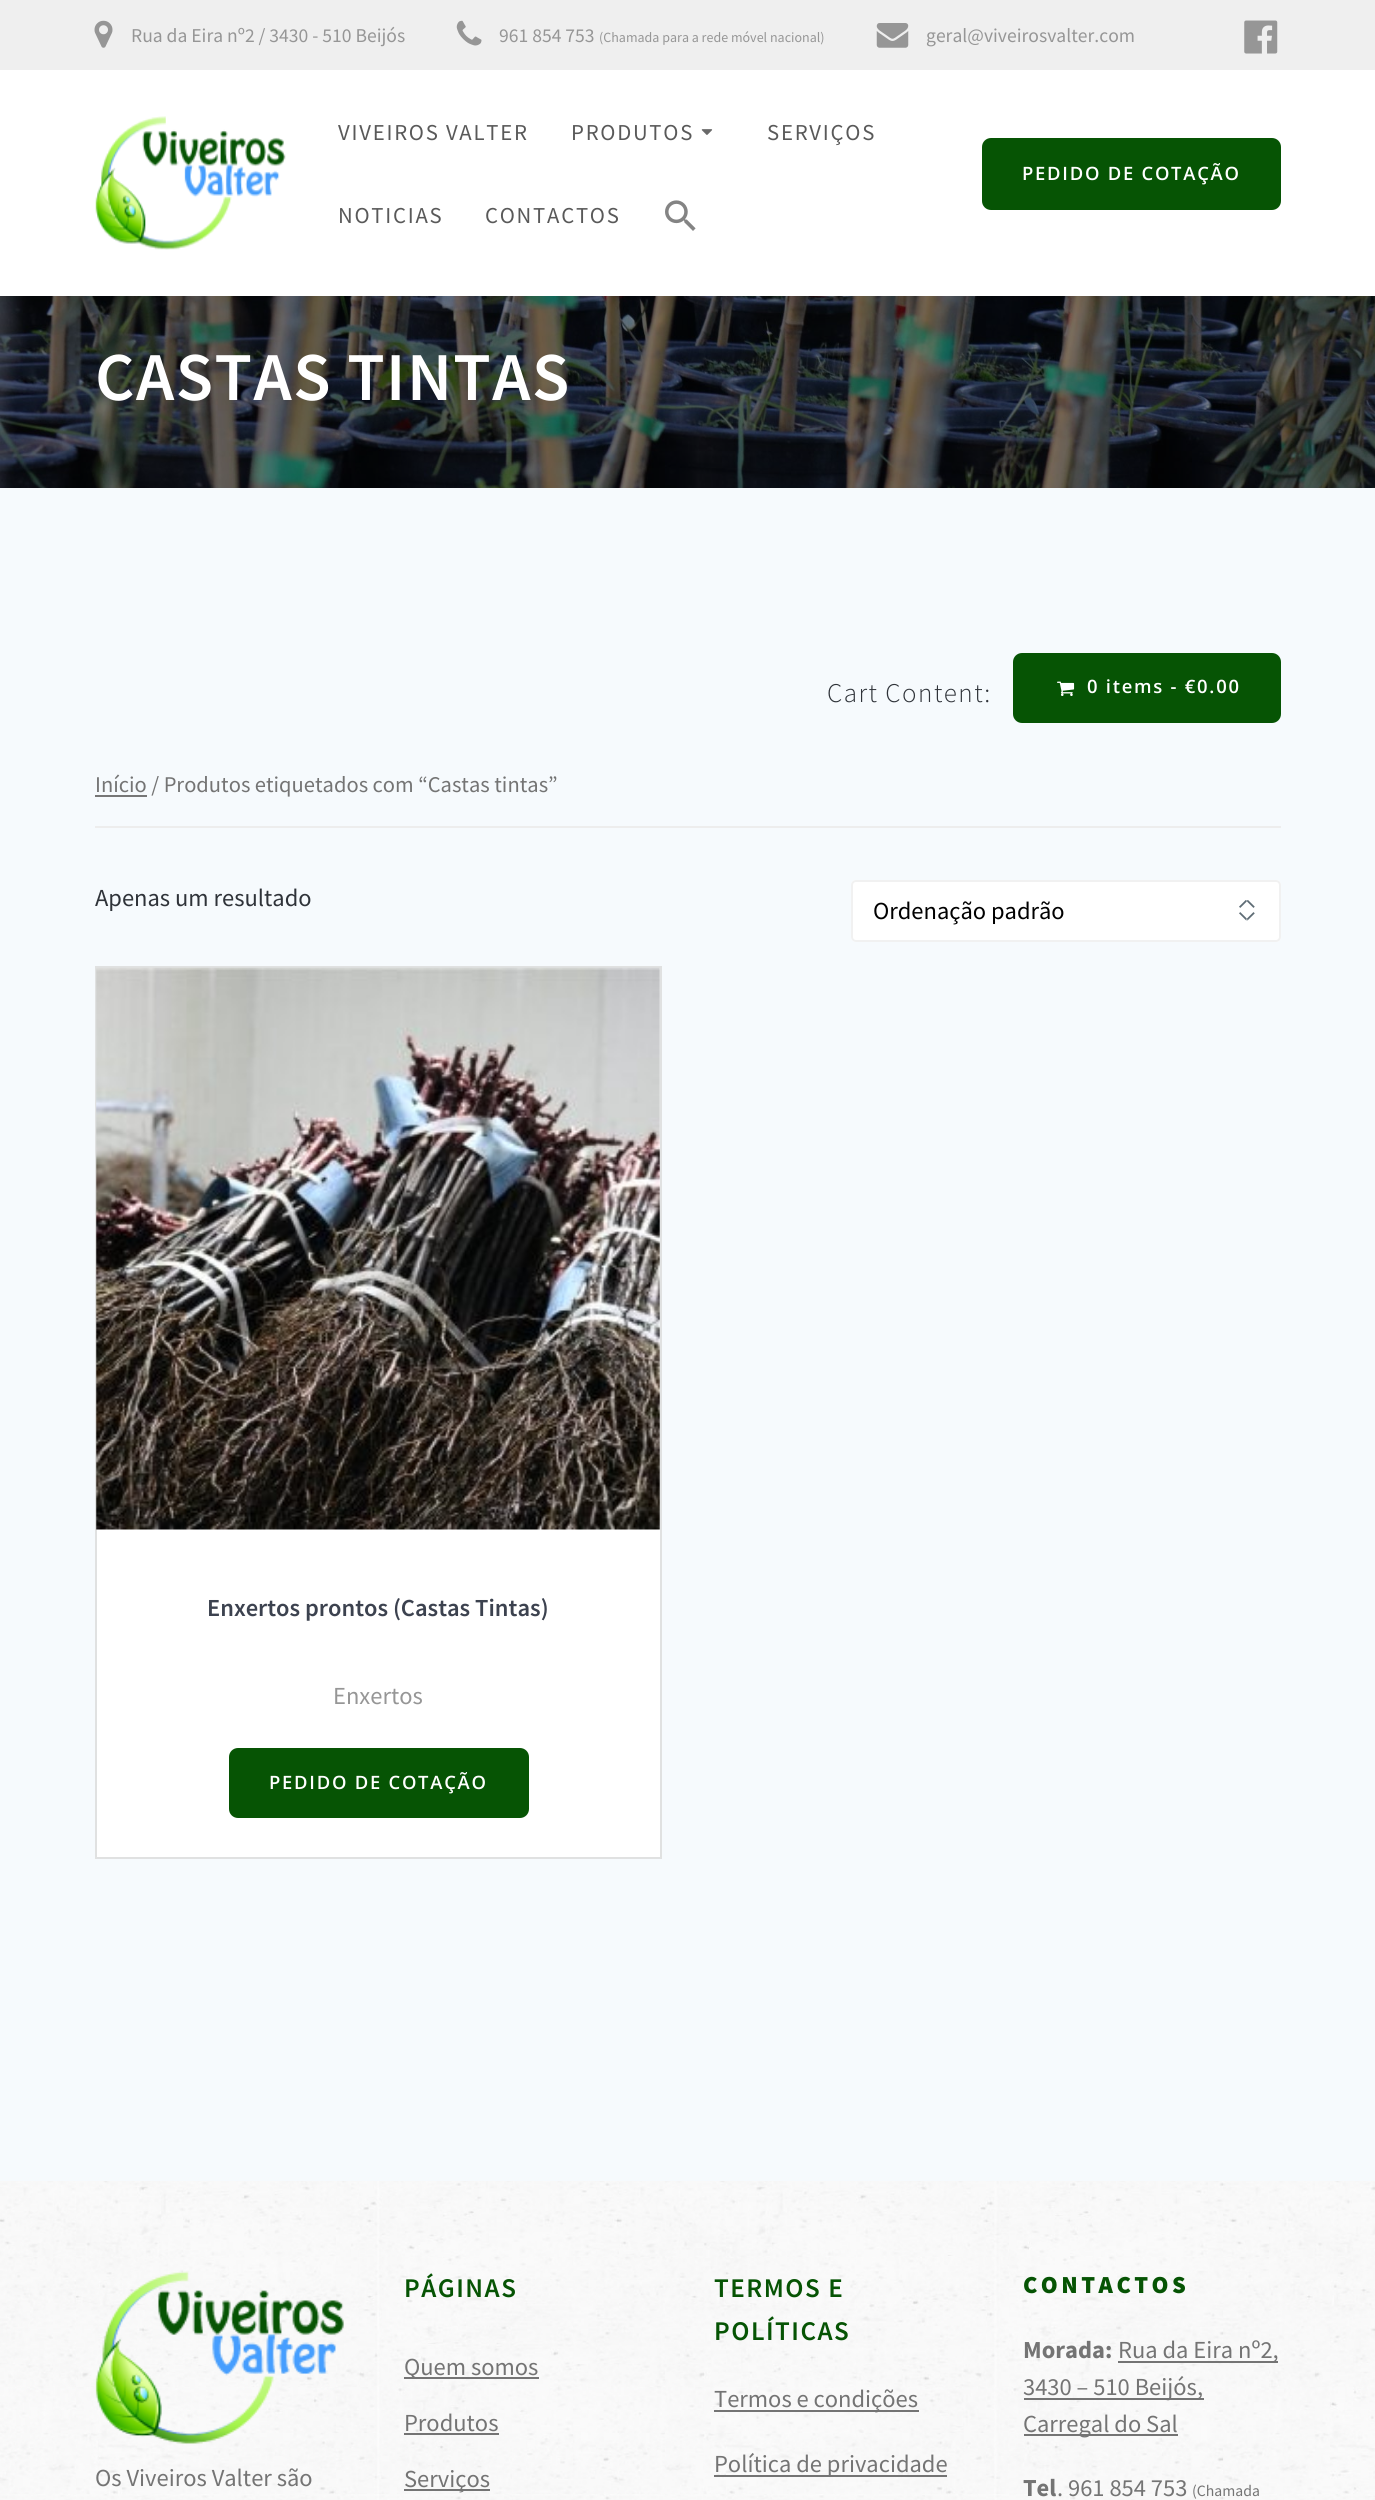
#include <cairo.h>
#include <math.h>
#include <stddef.h>


static void spaced_text(cairo_t *cr, double x, double y, const char *s, double letter, double word) {
    cairo_move_to(cr, x, y);
    while (*s) {
        char ch[5] = {0};
        int n = 0;
        do ch[n++] = *s++; while ((*s & 0xC0) == 0x80);
        cairo_show_text(cr, ch);
        cairo_rel_move_to(cr, letter + word * (*ch == ' '), 0);
    }
}

static void round_rect(cairo_t *cr, double x, double y, double w, double h, double r) {
    cairo_new_sub_path(cr);
    cairo_arc(cr, x + w - r, y + h - r, r, 0, M_PI / 2);
    cairo_arc(cr, x + r, y + h - r, r, M_PI / 2, M_PI);
    cairo_arc(cr, x + r, y + r, r, M_PI, 1.5 * M_PI);
    cairo_arc(cr, x + w - r, y + r, r, 1.5 * M_PI, 2 * M_PI);
    cairo_close_path(cr);
}

static void picture(cairo_t *cr, const char *path, double x, double y, double w, double h) {
    cairo_surface_t *image = cairo_image_surface_create_from_png(path);
    cairo_save(cr);
    cairo_set_source_surface(cr, image, x, y);
    cairo_rectangle(cr, x, y, w, h);
    cairo_fill(cr);
    cairo_restore(cr);
    cairo_surface_destroy(image);
}

int main(void) {
    cairo_surface_t *surface = cairo_image_surface_create(CAIRO_FORMAT_RGB24, 1375, 2500);
    cairo_t *cr = cairo_create(surface);
    cairo_font_options_t *options = cairo_font_options_create();
    cairo_font_options_set_hint_metrics(options, CAIRO_HINT_METRICS_OFF);
    cairo_font_options_set_hint_style(options, CAIRO_HINT_STYLE_NONE);
    cairo_set_font_options(cr, options);
    cairo_set_miter_limit(cr, 4);
    cairo_set_source_rgb(cr, 1, 1, 1);
    cairo_paint(cr);
    cairo_set_source_rgb(cr, 0.937, 0.937, 0.937);
    cairo_rectangle(cr, 0, 0, 1375, 70);
    cairo_fill(cr);
    picture(cr, "img1.png", 94, 20, 19, 28);
    cairo_select_font_face(cr, "Source Sans Pro", CAIRO_FONT_SLANT_NORMAL, CAIRO_FONT_WEIGHT_NORMAL);
    cairo_set_font_size(cr, 19.6);
    cairo_set_source_rgb(cr, 0.588, 0.588, 0.588);
    cairo_move_to(cr, 131, 42);
    cairo_show_text(cr, "Rua da Eira nº2 / 3430 - 510 Beijós");
    picture(cr, "img2.png", 456, 20, 26, 26);
    cairo_move_to(cr, 499, 42);
    cairo_show_text(cr, "961 854 753");
    cairo_set_font_size(cr, 14);
    cairo_move_to(cr, 599, 42);
    cairo_show_text(cr, "(Chamada para a rede móvel nacional)");
    picture(cr, "img3.png", 876, 23, 33, 25);
    cairo_set_font_size(cr, 19.6);
    cairo_move_to(cr, 926, 42);
    cairo_show_text(cr, "geral@viveirosvalter.com");
    picture(cr, "img4.png", 1244, 20, 34, 34);
    picture(cr, "img5.png", 95, 116, 191, 134);
    cairo_set_font_size(cr, 22.75);
    cairo_set_source_rgb(cr, 0.349, 0.349, 0.349);
    spaced_text(cr, 338, 140, "VIVEIROS VALTER", 1.75, 0);
    spaced_text(cr, 571, 140, "PRODUTOS", 1.75, 0);
    picture(cr, "img6.png", 701, 129, 12, 6);
    spaced_text(cr, 767, 140, "SERVIÇOS", 1.75, 0);
    spaced_text(cr, 338, 223, "NOTICIAS", 1.75, 0);
    spaced_text(cr, 485, 223, "CONTACTOS", 1.75, 0);
    picture(cr, "img7.png", 665, 200, 31, 31);
    cairo_set_source_rgb(cr, 0.027, 0.329, 0.016);
    round_rect(cr, 984, 140, 295, 68, 7);
    cairo_fill_preserve(cr);
    cairo_set_line_width(cr, 4);
    cairo_stroke(cr);
    cairo_select_font_face(cr, "Open Sans SemiBold", CAIRO_FONT_SLANT_NORMAL, CAIRO_FONT_WEIGHT_NORMAL);
    cairo_set_font_size(cr, 18.4);
    cairo_set_source_rgb(cr, 1, 1, 1);
    spaced_text(cr, 1022, 180, "PEDIDO DE COTAÇÃO", 1.75, 0);
    picture(cr, "img8.png", 0, 296, 1375, 192);
    cairo_select_font_face(cr, "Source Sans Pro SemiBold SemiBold", CAIRO_FONT_SLANT_NORMAL, CAIRO_FONT_WEIGHT_NORMAL);
    cairo_set_font_size(cr, 68.5);
    spaced_text(cr, 95, 400, "CASTAS TINTAS", 1.5, 0);
    cairo_set_source_rgb(cr, 0.961, 0.98, 0.992);
    cairo_rectangle(cr, 0, 488, 1375, 1693);
    cairo_fill(cr);
    cairo_set_source_rgb(cr, 0.929, 0.929, 0.929);
    cairo_rectangle(cr, 95, 826, 1186, 2);
    cairo_fill(cr);
    cairo_select_font_face(cr, "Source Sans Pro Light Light", CAIRO_FONT_SLANT_NORMAL, CAIRO_FONT_WEIGHT_NORMAL);
    cairo_set_font_size(cr, 27);
    cairo_set_source_rgb(cr, 0.184, 0.2, 0.224);
    spaced_text(cr, 827, 702, "Cart Content:", 1.5, 0);
    cairo_set_source_rgb(cr, 0.027, 0.329, 0.016);
    round_rect(cr, 1015, 655, 264, 66, 7);
    cairo_fill_preserve(cr);
    cairo_stroke(cr);
    picture(cr, "img9.png", 1057, 681, 18, 15);
    cairo_select_font_face(cr, "Open Sans SemiBold", CAIRO_FONT_SLANT_NORMAL, CAIRO_FONT_WEIGHT_NORMAL);
    cairo_set_font_size(cr, 18.4);
    cairo_set_source_rgb(cr, 1, 1, 1);
    spaced_text(cr, 1087, 693, "0 items - €0.00", 1.75, 0);
    cairo_set_source_rgb(cr, 0.463, 0.463, 0.463);
    cairo_rectangle(cr, 95, 795, 52, 2);
    cairo_fill(cr);
    cairo_select_font_face(cr, "Source Sans Pro", CAIRO_FONT_SLANT_NORMAL, CAIRO_FONT_WEIGHT_NORMAL);
    cairo_set_font_size(cr, 22.5);
    cairo_set_source_rgb(cr, 0.455, 0.455, 0.455);
    cairo_move_to(cr, 95, 792);
    cairo_show_text(cr, "Início / Produtos etiquetados com “Castas tintas”");
    cairo_set_font_size(cr, 24.5);
    cairo_set_source_rgb(cr, 0.184, 0.2, 0.224);
    cairo_move_to(cr, 95, 906);
    cairo_show_text(cr, "Apenas um resultado");
    cairo_set_source_rgb(cr, 1, 1, 1);
    round_rect(cr, 851, 880, 430, 62, 5);
    cairo_fill(cr);
    picture(cr, "img10.png", 1239, 900, 16, 21);
    round_rect(cr, 852, 881, 428, 60, 4);
    cairo_set_source_rgb(cr, 0.945, 0.945, 0.945);
    cairo_set_line_width(cr, 2);
    cairo_stroke(cr);
    cairo_set_source_rgb(cr, 0, 0, 0);
    cairo_move_to(cr, 873, 919);
    cairo_show_text(cr, "Ordenação padrão");
    cairo_set_source_rgb(cr, 1, 1, 1);
    cairo_rectangle(cr, 96, 967, 565, 891);
    cairo_fill_preserve(cr);
    cairo_set_source_rgb(cr, 0.878, 0.882, 0.882);
    cairo_stroke(cr);
    picture(cr, "img11.png", 96, 967, 564, 563);
    cairo_select_font_face(cr, "Source Sans Pro SemiBold SemiBold", CAIRO_FONT_SLANT_NORMAL, CAIRO_FONT_WEIGHT_NORMAL);
    cairo_set_source_rgb(cr, 0.235, 0.259, 0.31);
    cairo_move_to(cr, 207, 1616);
    cairo_show_text(cr, "Enxertos prontos (Castas Tintas)");
    cairo_select_font_face(cr, "Source Sans Pro", CAIRO_FONT_SLANT_NORMAL, CAIRO_FONT_WEIGHT_NORMAL);
    cairo_set_source_rgb(cr, 0.588, 0.588, 0.588);
    cairo_move_to(cr, 333, 1704);
    cairo_show_text(cr, "Enxertos");
    cairo_set_source_rgb(cr, 0.027, 0.329, 0.016);
    round_rect(cr, 231, 1750, 296, 66, 7);
    cairo_fill_preserve(cr);
    cairo_set_line_width(cr, 4);
    cairo_stroke(cr);
    cairo_select_font_face(cr, "Open Sans SemiBold", CAIRO_FONT_SLANT_NORMAL, CAIRO_FONT_WEIGHT_NORMAL);
    cairo_set_font_size(cr, 18.4);
    cairo_set_source_rgb(cr, 1, 1, 1);
    spaced_text(cr, 269, 1789, "PEDIDO DE COTAÇÃO", 1.75, 0);
    picture(cr, "img12.png", 0, 2181, 1375, 319);
    picture(cr, "img13.png", 95, 2271, 249, 173);
    cairo_select_font_face(cr, "Source Sans Pro", CAIRO_FONT_SLANT_NORMAL, CAIRO_FONT_WEIGHT_NORMAL);
    cairo_set_font_size(cr, 24.5);
    cairo_set_source_rgb(cr, 0.455, 0.455, 0.455);
    cairo_move_to(cr, 95, 2486);
    cairo_show_text(cr, "Os Viveiros Valter são");
    cairo_select_font_face(cr, "Source Sans Pro SemiBold SemiBold", CAIRO_FONT_SLANT_NORMAL, CAIRO_FONT_WEIGHT_NORMAL);
    cairo_set_font_size(cr, 27);
    cairo_set_source_rgb(cr, 0.027, 0.329, 0.016);
    spaced_text(cr, 404, 2297, "PÁGINAS", 1.5, 0);
    cairo_set_source_rgb(cr, 0.455, 0.455, 0.455);
    cairo_rectangle(cr, 404, 2377, 135, 2);
    cairo_fill(cr);
    cairo_select_font_face(cr, "Source Sans Pro", CAIRO_FONT_SLANT_NORMAL, CAIRO_FONT_WEIGHT_NORMAL);
    cairo_set_font_size(cr, 24.5);
    cairo_move_to(cr, 404, 2375);
    cairo_show_text(cr, "Quem somos");
    cairo_move_to(cr, 404, 2431);
    cairo_show_text(cr, "Produtos");
    cairo_rectangle(cr, 404, 2433, 95, 2);
    cairo_fill(cr);
    cairo_rectangle(cr, 404, 2489, 86, 2);
    cairo_fill(cr);
    cairo_move_to(cr, 404, 2487);
    cairo_show_text(cr, "Serviços");
    cairo_select_font_face(cr, "Source Sans Pro SemiBold SemiBold", CAIRO_FONT_SLANT_NORMAL, CAIRO_FONT_WEIGHT_NORMAL);
    cairo_set_font_size(cr, 27);
    cairo_set_source_rgb(cr, 0.027, 0.329, 0.016);
    spaced_text(cr, 714, 2297, "TERMOS E", 1.5, 0);
    spaced_text(cr, 714, 2340, "POLÍTICAS", 1.5, 0);
    cairo_set_source_rgb(cr, 0.455, 0.455, 0.455);
    cairo_rectangle(cr, 714, 2410, 205, 2);
    cairo_fill(cr);
    cairo_select_font_face(cr, "Source Sans Pro", CAIRO_FONT_SLANT_NORMAL, CAIRO_FONT_WEIGHT_NORMAL);
    cairo_set_font_size(cr, 24.5);
    cairo_move_to(cr, 714, 2407);
    cairo_show_text(cr, "Termos e condições");
    cairo_rectangle(cr, 714, 2475, 233, 2);
    cairo_fill(cr);
    cairo_move_to(cr, 714, 2472);
    cairo_show_text(cr, "Política de privacidade");
    cairo_select_font_face(cr, "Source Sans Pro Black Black", CAIRO_FONT_SLANT_NORMAL, CAIRO_FONT_WEIGHT_NORMAL);
    cairo_set_source_rgb(cr, 0.027, 0.329, 0.016);
    spaced_text(cr, 1023, 2293, "CONTACTOS", 3.5, 0);
    cairo_select_font_face(cr, "Source Sans Pro", CAIRO_FONT_SLANT_NORMAL, CAIRO_FONT_WEIGHT_BOLD);
    cairo_set_source_rgb(cr, 0.455, 0.455, 0.455);
    cairo_move_to(cr, 1023, 2358);
    cairo_show_text(cr, "Morada:");
    cairo_rectangle(cr, 1118, 2361, 160, 2);
    cairo_fill(cr);
    cairo_select_font_face(cr, "Source Sans Pro", CAIRO_FONT_SLANT_NORMAL, CAIRO_FONT_WEIGHT_NORMAL);
    cairo_move_to(cr, 1118, 2358);
    cairo_show_text(cr, "Rua da Eira nº2,");
    cairo_rectangle(cr, 1024, 2398, 180, 2);
    cairo_fill(cr);
    cairo_move_to(cr, 1023, 2395);
    cairo_show_text(cr, "3430 – 510 Beijós,");
    cairo_rectangle(cr, 1024, 2434, 154, 2);
    cairo_fill(cr);
    cairo_move_to(cr, 1023, 2432);
    cairo_show_text(cr, "Carregal do Sal");
    cairo_select_font_face(cr, "Source Sans Pro", CAIRO_FONT_SLANT_NORMAL, CAIRO_FONT_WEIGHT_BOLD);
    cairo_move_to(cr, 1023, 2496);
    cairo_show_text(cr, "Tel");
    cairo_select_font_face(cr, "Source Sans Pro", CAIRO_FONT_SLANT_NORMAL, CAIRO_FONT_WEIGHT_NORMAL);
    cairo_move_to(cr, 1057, 2496);
    cairo_show_text(cr, ". 961 854 753");
    cairo_set_font_size(cr, 15.75);
    cairo_move_to(cr, 1192, 2496);
    cairo_show_text(cr, "(Chamada");
    cairo_surface_write_to_png(surface, "page.png");
    cairo_font_options_destroy(options);
    cairo_destroy(cr);
    cairo_surface_destroy(surface);
    return 0;
}
